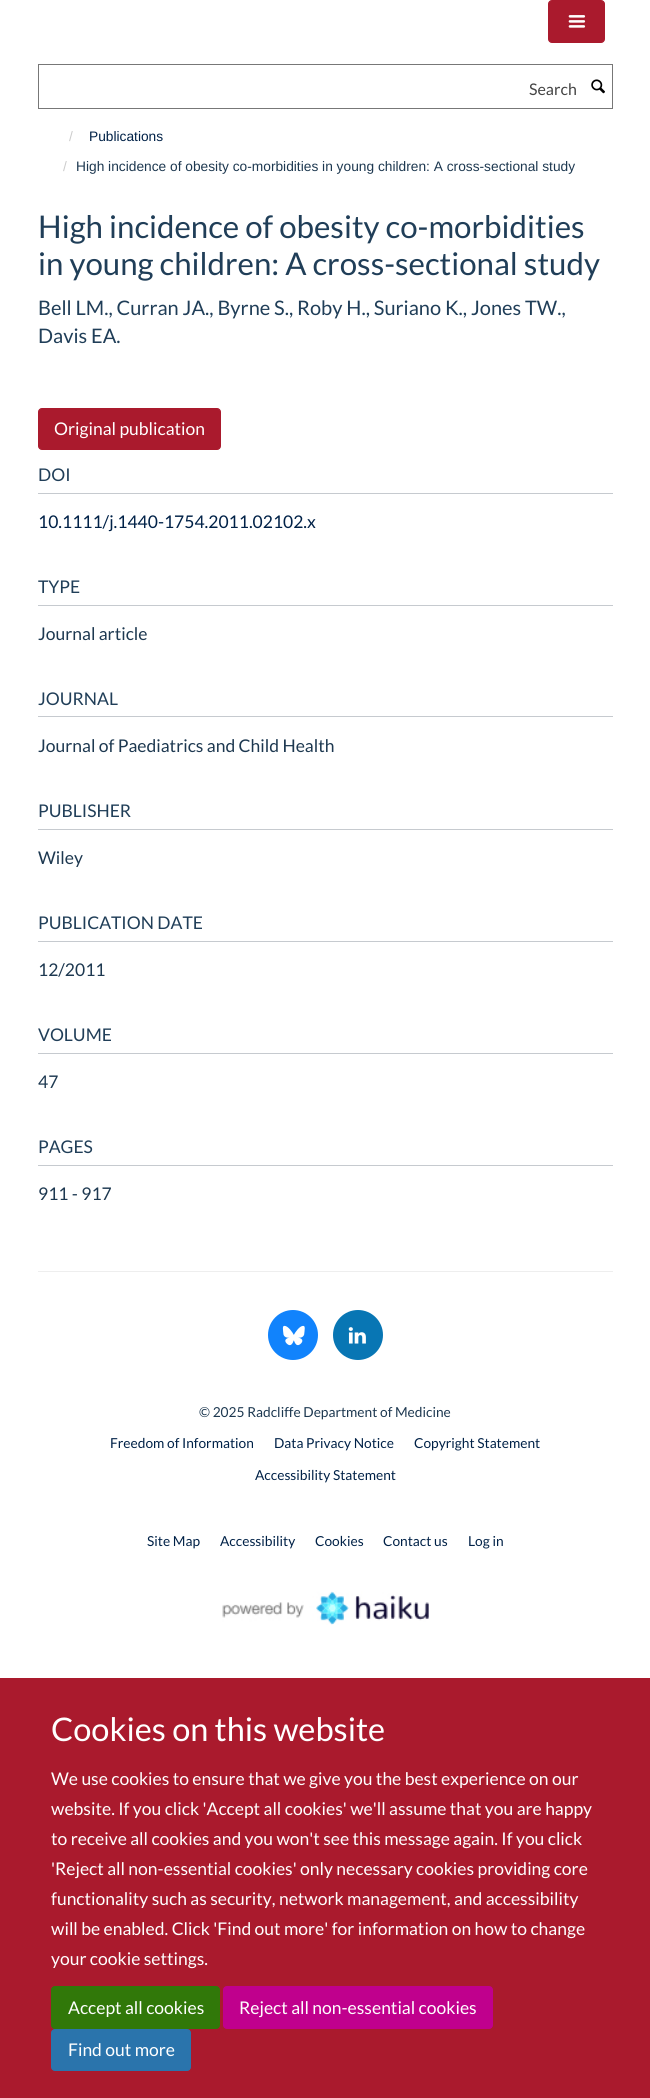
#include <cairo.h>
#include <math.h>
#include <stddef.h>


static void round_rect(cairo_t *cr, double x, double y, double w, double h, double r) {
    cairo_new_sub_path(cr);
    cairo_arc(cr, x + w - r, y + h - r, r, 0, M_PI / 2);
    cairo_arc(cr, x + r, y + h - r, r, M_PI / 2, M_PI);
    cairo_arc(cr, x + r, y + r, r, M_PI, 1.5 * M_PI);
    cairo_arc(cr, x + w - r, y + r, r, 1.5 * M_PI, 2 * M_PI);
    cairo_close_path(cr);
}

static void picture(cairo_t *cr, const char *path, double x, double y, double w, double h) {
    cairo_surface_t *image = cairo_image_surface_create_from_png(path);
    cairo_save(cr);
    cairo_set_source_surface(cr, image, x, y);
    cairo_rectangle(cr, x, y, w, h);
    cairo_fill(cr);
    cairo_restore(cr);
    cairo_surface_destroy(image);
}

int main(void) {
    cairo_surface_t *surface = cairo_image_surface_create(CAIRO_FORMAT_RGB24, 650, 2098);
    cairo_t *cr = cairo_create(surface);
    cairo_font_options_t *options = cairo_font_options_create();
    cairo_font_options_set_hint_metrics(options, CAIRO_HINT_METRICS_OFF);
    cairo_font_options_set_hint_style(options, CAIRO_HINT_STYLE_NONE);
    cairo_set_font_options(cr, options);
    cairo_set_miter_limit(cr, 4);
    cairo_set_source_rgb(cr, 1, 1, 1);
    cairo_paint(cr);
    cairo_set_source_rgb(cr, 0.667, 0.102, 0.176);
    round_rect(cr, 548.5, 0.5, 56, 42, 3.5);
    cairo_fill_preserve(cr);
    cairo_set_line_width(cr, 1);
    cairo_stroke(cr);
    picture(cr, "img1.png", 568, 15, 18, 13);
    cairo_rectangle(cr, 38.5, 64.5, 574, 44);
    cairo_set_source_rgb(cr, 0.467, 0.467, 0.467);
    cairo_stroke(cr);
    cairo_select_font_face(cr, "Lato", CAIRO_FONT_SLANT_NORMAL, CAIRO_FONT_WEIGHT_NORMAL);
    cairo_set_font_size(cr, 16);
    cairo_set_source_rgb(cr, 0.267, 0.267, 0.267);
    cairo_move_to(cr, 529, 95);
    cairo_show_text(cr, "Search");
    picture(cr, "img2.png", 591, 79, 14, 15);
    cairo_select_font_face(cr, "Liberation Sans", CAIRO_FONT_SLANT_NORMAL, CAIRO_FONT_WEIGHT_NORMAL);
    cairo_set_font_size(cr, 13.75);
    cairo_set_source_rgb(cr, 0.8, 0.8, 0.8);
    cairo_move_to(cr, 69, 141);
    cairo_show_text(cr, "/");
    cairo_set_source_rgb(cr, 0, 0.129, 0.278);
    cairo_move_to(cr, 89, 141);
    cairo_show_text(cr, "Publications");
    cairo_set_source_rgb(cr, 0.8, 0.8, 0.8);
    cairo_move_to(cr, 63, 171);
    cairo_show_text(cr, "/");
    cairo_set_source_rgb(cr, 0.114, 0.22, 0.314);
    cairo_move_to(cr, 76, 171);
    cairo_show_text(cr, "High incidence of obesity co-morbidities in young children: A cross-sectional study");
    cairo_select_font_face(cr, "Lato", CAIRO_FONT_SLANT_NORMAL, CAIRO_FONT_WEIGHT_NORMAL);
    cairo_set_font_size(cr, 31.25);
    cairo_set_source_rgb(cr, 0.125, 0.243, 0.345);
    cairo_move_to(cr, 38, 238);
    cairo_show_text(cr, "High incidence of obesity co-morbidities");
    cairo_move_to(cr, 38, 275);
    cairo_show_text(cr, "in young children: A cross-sectional study");
    cairo_set_font_size(cr, 20);
    cairo_move_to(cr, 38, 315);
    cairo_show_text(cr, "Bell LM., Curran JA., Byrne S., Roby H., Suriano K., Jones TW.,");
    cairo_move_to(cr, 38, 343);
    cairo_show_text(cr, "Davis EA.");
    cairo_set_source_rgb(cr, 0.667, 0.102, 0.176);
    round_rect(cr, 38.5, 408.5, 182, 41, 3.5);
    cairo_fill_preserve(cr);
    cairo_stroke(cr);
    cairo_set_font_size(cr, 17.5);
    cairo_set_source_rgb(cr, 1, 1, 1);
    cairo_move_to(cr, 54, 435);
    cairo_show_text(cr, "Original publication");
    cairo_set_source_rgb(cr, 0.776, 0.792, 0.812);
    cairo_rectangle(cr, 38, 493, 575, 1);
    cairo_fill(cr);
    cairo_set_source_rgb(cr, 0.125, 0.243, 0.345);
    cairo_move_to(cr, 38, 481);
    cairo_show_text(cr, "DOI");
    cairo_set_source_rgb(cr, 0, 0.129, 0.278);
    cairo_move_to(cr, 38, 528);
    cairo_show_text(cr, "10.1111/j.1440-1754.2011.02102.x");
    cairo_set_source_rgb(cr, 0.776, 0.792, 0.812);
    cairo_rectangle(cr, 38, 605, 575, 1);
    cairo_fill(cr);
    cairo_set_source_rgb(cr, 0.125, 0.243, 0.345);
    cairo_move_to(cr, 38, 593);
    cairo_show_text(cr, "TYPE");
    cairo_set_source_rgb(cr, 0.114, 0.22, 0.314);
    cairo_move_to(cr, 38, 640);
    cairo_show_text(cr, "Journal article");
    cairo_set_source_rgb(cr, 0.776, 0.792, 0.812);
    cairo_rectangle(cr, 38, 716, 575, 1);
    cairo_fill(cr);
    cairo_set_source_rgb(cr, 0.125, 0.243, 0.345);
    cairo_move_to(cr, 38, 705);
    cairo_show_text(cr, "JOURNAL");
    cairo_set_source_rgb(cr, 0.114, 0.22, 0.314);
    cairo_move_to(cr, 38, 752);
    cairo_show_text(cr, "Journal of Paediatrics and Child Health");
    cairo_set_source_rgb(cr, 0.776, 0.792, 0.812);
    cairo_rectangle(cr, 38, 829, 575, 1);
    cairo_fill(cr);
    cairo_set_source_rgb(cr, 0.125, 0.243, 0.345);
    cairo_move_to(cr, 38, 817);
    cairo_show_text(cr, "PUBLISHER");
    cairo_set_source_rgb(cr, 0.114, 0.22, 0.314);
    cairo_move_to(cr, 38, 864);
    cairo_show_text(cr, "Wiley");
    cairo_set_source_rgb(cr, 0.776, 0.792, 0.812);
    cairo_rectangle(cr, 38, 941, 575, 1);
    cairo_fill(cr);
    cairo_set_source_rgb(cr, 0.125, 0.243, 0.345);
    cairo_move_to(cr, 38, 929);
    cairo_show_text(cr, "PUBLICATION DATE");
    cairo_set_source_rgb(cr, 0.114, 0.22, 0.314);
    cairo_move_to(cr, 38, 976);
    cairo_show_text(cr, "12/2011");
    cairo_set_source_rgb(cr, 0.776, 0.792, 0.812);
    cairo_rectangle(cr, 38, 1053, 575, 1);
    cairo_fill(cr);
    cairo_set_source_rgb(cr, 0.125, 0.243, 0.345);
    cairo_move_to(cr, 38, 1041);
    cairo_show_text(cr, "VOLUME");
    cairo_set_source_rgb(cr, 0.114, 0.22, 0.314);
    cairo_move_to(cr, 38, 1088);
    cairo_show_text(cr, "47");
    cairo_set_source_rgb(cr, 0.776, 0.792, 0.812);
    cairo_rectangle(cr, 38, 1165, 575, 1);
    cairo_fill(cr);
    cairo_set_source_rgb(cr, 0.125, 0.243, 0.345);
    cairo_move_to(cr, 38, 1153);
    cairo_show_text(cr, "PAGES");
    cairo_set_source_rgb(cr, 0.114, 0.22, 0.314);
    cairo_move_to(cr, 38, 1200);
    cairo_show_text(cr, "911 - 917");
    cairo_set_source_rgb(cr, 0.933, 0.933, 0.933);
    cairo_rectangle(cr, 38, 1271, 575, 1);
    cairo_fill(cr);
    cairo_set_source_rgb(cr, 0.067, 0.514, 0.988);
    cairo_arc(cr, 293, 1335, 25, 0, 2 * M_PI);
    cairo_fill(cr);
    picture(cr, "img3.png", 282, 1325, 23, 21);
    cairo_set_source_rgb(cr, 0.035, 0.463, 0.706);
    cairo_arc(cr, 358, 1335, 25, 0, 2 * M_PI);
    cairo_fill(cr);
    picture(cr, "img4.png", 348, 1327, 18, 17);
    cairo_set_font_size(cr, 13.75);
    cairo_set_source_rgb(cr, 0.114, 0.22, 0.314);
    cairo_move_to(cr, 199, 1417);
    cairo_show_text(cr, "© 2025 Radcliffe Department of Medicine");
    cairo_set_source_rgb(cr, 0, 0.129, 0.278);
    cairo_move_to(cr, 110, 1448);
    cairo_show_text(cr, "Freedom of Information");
    cairo_move_to(cr, 274, 1448);
    cairo_show_text(cr, "Data Privacy Notice");
    cairo_move_to(cr, 414, 1448);
    cairo_show_text(cr, "Copyright Statement");
    cairo_move_to(cr, 255, 1480);
    cairo_show_text(cr, "Accessibility Statement");
    cairo_move_to(cr, 147, 1546);
    cairo_show_text(cr, "Site Map");
    cairo_move_to(cr, 220, 1546);
    cairo_show_text(cr, "Accessibility");
    cairo_move_to(cr, 315, 1546);
    cairo_show_text(cr, "Cookies");
    cairo_move_to(cr, 383, 1546);
    cairo_show_text(cr, "Contact us");
    cairo_move_to(cr, 468, 1546);
    cairo_show_text(cr, "Log in");
    picture(cr, "img5.png", 222, 1591, 207, 34);
    cairo_set_source_rgb(cr, 0.667, 0.102, 0.176);
    cairo_rectangle(cr, 0, 1678, 650, 420);
    cairo_fill(cr);
    cairo_set_font_size(cr, 32.5);
    cairo_set_source_rgb(cr, 1, 1, 1);
    cairo_move_to(cr, 51, 1741);
    cairo_show_text(cr, "Cookies on this website");
    cairo_set_font_size(cr, 17.5);
    cairo_move_to(cr, 51, 1785);
    cairo_show_text(cr, "We use cookies to ensure that we give you the best experience on our");
    cairo_move_to(cr, 51, 1815);
    cairo_show_text(cr, "website. If you click 'Accept all cookies' we'll assume that you are happy");
    cairo_move_to(cr, 51, 1845);
    cairo_show_text(cr, "to receive all cookies and you won't see this message again. If you click");
    cairo_move_to(cr, 51, 1875);
    cairo_show_text(cr, "'Reject all non-essential cookies' only necessary cookies providing core");
    cairo_move_to(cr, 51, 1905);
    cairo_show_text(cr, "functionality such as security, network management, and accessibility");
    cairo_move_to(cr, 51, 1935);
    cairo_show_text(cr, "will be enabled. Click 'Find out more' for information on how to change");
    cairo_move_to(cr, 51, 1965);
    cairo_show_text(cr, "your cookie settings.");
    cairo_set_source_rgb(cr, 0.192, 0.471, 0.039);
    round_rect(cr, 51.5, 1986.5, 168, 42, 3.5);
    cairo_fill_preserve(cr);
    cairo_stroke(cr);
    cairo_set_source_rgb(cr, 1, 1, 1);
    cairo_move_to(cr, 68, 2014);
    cairo_show_text(cr, "Accept all cookies");
    cairo_set_source_rgb(cr, 0.753, 0, 0.553);
    round_rect(cr, 223.5, 1986.5, 269, 42, 3.5);
    cairo_fill_preserve(cr);
    cairo_stroke(cr);
    cairo_set_source_rgb(cr, 1, 1, 1);
    cairo_move_to(cr, 239, 2014);
    cairo_show_text(cr, "Reject all non-essential cookies");
    cairo_set_source_rgb(cr, 0.165, 0.455, 0.675);
    round_rect(cr, 51.5, 2029.5, 139, 41, 3.5);
    cairo_fill_preserve(cr);
    cairo_stroke(cr);
    cairo_set_source_rgb(cr, 1, 1, 1);
    cairo_move_to(cr, 68, 2056);
    cairo_show_text(cr, "Find out more");
    cairo_surface_write_to_png(surface, "page.png");
    cairo_font_options_destroy(options);
    cairo_destroy(cr);
    cairo_surface_destroy(surface);
    return 0;
}
